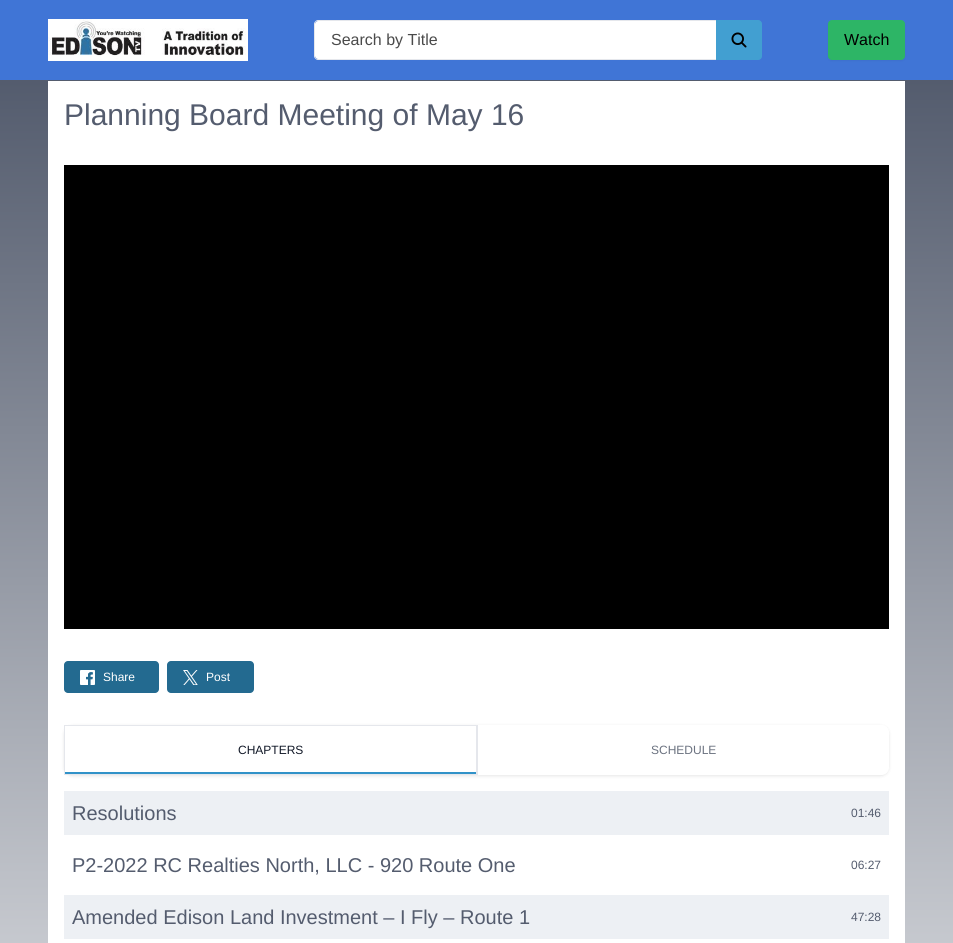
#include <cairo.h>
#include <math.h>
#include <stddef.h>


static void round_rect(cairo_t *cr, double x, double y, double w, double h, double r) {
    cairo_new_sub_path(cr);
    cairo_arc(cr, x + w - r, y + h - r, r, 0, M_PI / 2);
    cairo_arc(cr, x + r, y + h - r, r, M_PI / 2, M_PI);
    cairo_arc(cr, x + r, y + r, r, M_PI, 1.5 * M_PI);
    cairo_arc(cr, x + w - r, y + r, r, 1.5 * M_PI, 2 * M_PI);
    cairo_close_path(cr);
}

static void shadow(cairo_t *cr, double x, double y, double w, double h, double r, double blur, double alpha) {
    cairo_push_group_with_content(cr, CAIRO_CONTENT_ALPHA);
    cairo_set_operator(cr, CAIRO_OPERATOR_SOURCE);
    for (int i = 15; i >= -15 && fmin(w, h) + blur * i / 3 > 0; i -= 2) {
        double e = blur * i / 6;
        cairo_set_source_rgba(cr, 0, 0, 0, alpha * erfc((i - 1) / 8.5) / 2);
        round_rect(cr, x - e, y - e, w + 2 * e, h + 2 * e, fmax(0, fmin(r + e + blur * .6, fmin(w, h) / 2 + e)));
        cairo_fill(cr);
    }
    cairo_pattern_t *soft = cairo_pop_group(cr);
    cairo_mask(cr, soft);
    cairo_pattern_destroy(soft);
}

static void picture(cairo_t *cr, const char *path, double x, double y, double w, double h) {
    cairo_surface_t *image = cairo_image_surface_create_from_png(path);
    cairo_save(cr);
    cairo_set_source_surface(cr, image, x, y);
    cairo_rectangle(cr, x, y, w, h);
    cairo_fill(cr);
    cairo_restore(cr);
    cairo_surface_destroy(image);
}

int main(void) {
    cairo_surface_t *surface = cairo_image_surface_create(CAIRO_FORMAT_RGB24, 953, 943);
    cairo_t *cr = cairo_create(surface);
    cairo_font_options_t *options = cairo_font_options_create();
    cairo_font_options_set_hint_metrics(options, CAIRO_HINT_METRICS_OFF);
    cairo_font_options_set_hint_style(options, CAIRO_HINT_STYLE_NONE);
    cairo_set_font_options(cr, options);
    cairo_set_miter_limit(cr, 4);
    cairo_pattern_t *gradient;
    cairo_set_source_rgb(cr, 0.251, 0.459, 0.839);
    cairo_paint(cr);
    cairo_set_source_rgb(cr, 0.329, 0.361, 0.431);
    cairo_rectangle(cr, 0, 80, 953, 1);
    cairo_fill(cr);
    picture(cr, "img1.png", 48, 19, 200, 42);
    cairo_set_source_rgb(cr, 1, 1, 1);
    cairo_new_path(cr);
    cairo_move_to(cr, 318, 21);
    cairo_line_to(cr, 716, 21);
    cairo_line_to(cr, 716, 59);
    cairo_line_to(cr, 318, 59);
    cairo_curve_to(cr, 316.5, 59, 315, 57.5, 315, 56);
    cairo_line_to(cr, 315, 24);
    cairo_curve_to(cr, 315, 22.5, 316.5, 21, 318, 21);
    cairo_close_path(cr);
    cairo_fill(cr);
    cairo_set_source_rgb(cr, 0.898, 0.906, 0.922);
    cairo_set_fill_rule(cr, CAIRO_FILL_RULE_EVEN_ODD);
    cairo_new_path(cr);
    cairo_move_to(cr, 318, 20);
    cairo_line_to(cr, 716, 20);
    cairo_line_to(cr, 716, 60);
    cairo_line_to(cr, 318, 60);
    cairo_curve_to(cr, 316, 60, 314, 58, 314, 56);
    cairo_line_to(cr, 314, 24);
    cairo_curve_to(cr, 314, 22, 316, 20, 318, 20);
    cairo_close_path(cr);
    cairo_move_to(cr, 318, 21);
    cairo_line_to(cr, 716, 21);
    cairo_line_to(cr, 716, 59);
    cairo_line_to(cr, 318, 59);
    cairo_curve_to(cr, 316, 59, 315, 58, 315, 56);
    cairo_line_to(cr, 315, 24);
    cairo_curve_to(cr, 315, 22, 316, 21, 318, 21);
    cairo_close_path(cr);
    cairo_fill(cr);
    cairo_select_font_face(cr, "Liberation Sans", CAIRO_FONT_SLANT_NORMAL, CAIRO_FONT_WEIGHT_NORMAL);
    cairo_set_font_size(cr, 16);
    cairo_set_source_rgb(cr, 0.29, 0.29, 0.29);
    cairo_move_to(cr, 331, 45);
    cairo_show_text(cr, "Search by Title");
    cairo_set_source_rgb(cr, 0.259, 0.624, 0.82);
    cairo_new_path(cr);
    cairo_move_to(cr, 716.5, 20.5);
    cairo_line_to(cr, 758, 20.5);
    cairo_curve_to(cr, 760, 20.5, 761.5, 22, 761.5, 24);
    cairo_line_to(cr, 761.5, 56);
    cairo_curve_to(cr, 761.5, 58, 760, 59.5, 758, 59.5);
    cairo_line_to(cr, 716.5, 59.5);
    cairo_close_path(cr);
    cairo_fill_preserve(cr);
    cairo_set_line_width(cr, 1);
    cairo_stroke(cr);
    picture(cr, "img2.png", 731, 32, 16, 16);
    cairo_set_source_rgb(cr, 0, 0, 0);
    shadow(cr, 828, 21, 77, 40, 4, 1, 0.05);
    cairo_set_source_rgb(cr, 0.176, 0.71, 0.4);
    round_rect(cr, 828, 20, 77, 40, 4);
    cairo_fill(cr);
    cairo_set_source_rgb(cr, 0, 0, 0);
    cairo_move_to(cr, 844, 45);
    cairo_show_text(cr, "Watch");
    gradient = cairo_pattern_create_linear(476, 81, 477, 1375);
    cairo_pattern_add_color_stop_rgba(gradient, 0, 0.329, 0.361, 0.431, 1);
    cairo_pattern_add_color_stop_rgba(gradient, 1, 1, 1, 1, 1);
    cairo_set_source(cr, gradient);
    cairo_pattern_destroy(gradient);
    cairo_rectangle(cr, 0, 81, 953, 862);
    cairo_fill(cr);
    cairo_set_source_rgb(cr, 1, 1, 1);
    cairo_rectangle(cr, 48, 81, 857, 862);
    cairo_fill(cr);
    cairo_set_font_size(cr, 30);
    cairo_set_source_rgb(cr, 0.329, 0.361, 0.431);
    cairo_move_to(cr, 64, 125);
    cairo_show_text(cr, "Planning Board Meeting of May 16");
    cairo_set_source_rgb(cr, 0, 0, 0);
    cairo_rectangle(cr, 64, 165, 825, 464);
    cairo_fill(cr);
    cairo_set_source_rgb(cr, 0.137, 0.416, 0.565);
    round_rect(cr, 64, 661, 95, 32, 4);
    cairo_fill(cr);
    picture(cr, "img3.png", 80, 670, 15, 15);
    cairo_set_font_size(cr, 12);
    cairo_set_source_rgb(cr, 1, 1, 1);
    cairo_move_to(cr, 103, 681);
    cairo_show_text(cr, "Share");
    cairo_set_source_rgb(cr, 0.137, 0.416, 0.565);
    round_rect(cr, 167, 661, 87, 32, 4);
    cairo_fill(cr);
    picture(cr, "img4.png", 183, 670, 15, 15);
    cairo_set_source_rgb(cr, 1, 1, 1);
    cairo_move_to(cr, 206, 681);
    cairo_show_text(cr, "Post");
    cairo_save(cr);
    cairo_new_path(cr);
    cairo_move_to(cr, 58, 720);
    cairo_line_to(cr, 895, 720);
    cairo_line_to(cr, 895, 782);
    cairo_line_to(cr, 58, 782);
    cairo_close_path(cr);
    cairo_move_to(cr, 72, 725);
    cairo_line_to(cr, 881, 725);
    cairo_curve_to(cr, 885.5, 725, 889, 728.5, 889, 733);
    cairo_line_to(cr, 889, 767);
    cairo_curve_to(cr, 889, 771.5, 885.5, 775, 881, 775);
    cairo_line_to(cr, 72, 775);
    cairo_curve_to(cr, 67.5, 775, 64, 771.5, 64, 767);
    cairo_line_to(cr, 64, 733);
    cairo_curve_to(cr, 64, 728.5, 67.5, 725, 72, 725);
    cairo_close_path(cr);
    cairo_clip(cr);
    cairo_set_source_rgb(cr, 0, 0, 0);
    shadow(cr, 64, 726, 825, 50, 8, 1.5, 0.1);
    cairo_restore(cr);
    cairo_rectangle(cr, 65, 726, 3, 46);
    cairo_fill(cr);
    cairo_rectangle(cr, 64.5, 725.5, 412, 49);
    cairo_set_source_rgb(cr, 0.898, 0.906, 0.922);
    cairo_stroke(cr);
    cairo_set_source_rgb(cr, 0.067, 0.094, 0.153);
    cairo_move_to(cr, 238, 754);
    cairo_show_text(cr, "CHAPTERS");
    cairo_set_source_rgb(cr, 0.192, 0.573, 0.784);
    cairo_rectangle(cr, 65, 772, 411, 2);
    cairo_fill(cr);
    cairo_set_source_rgb(cr, 0.898, 0.906, 0.922);
    cairo_rectangle(cr, 477, 725, 1, 50);
    cairo_fill(cr);
    cairo_set_source_rgb(cr, 0.42, 0.447, 0.502);
    cairo_move_to(cr, 651, 754);
    cairo_show_text(cr, "SCHEDULE");
    cairo_set_source_rgb(cr, 0.929, 0.941, 0.957);
    cairo_rectangle(cr, 64, 791, 825, 44);
    cairo_fill(cr);
    cairo_set_font_size(cr, 20);
    cairo_set_source_rgb(cr, 0.329, 0.361, 0.431);
    cairo_move_to(cr, 72, 820);
    cairo_show_text(cr, "Resolutions");
    cairo_set_font_size(cr, 12);
    cairo_move_to(cr, 851, 817);
    cairo_show_text(cr, "01:46");
    cairo_set_font_size(cr, 20);
    cairo_move_to(cr, 72, 872);
    cairo_show_text(cr, "P2-2022 RC Realties North, LLC - 920 Route One");
    cairo_set_font_size(cr, 12);
    cairo_move_to(cr, 851, 869);
    cairo_show_text(cr, "06:27");
    cairo_set_source_rgb(cr, 0.929, 0.941, 0.957);
    cairo_rectangle(cr, 64, 895, 825, 44);
    cairo_fill(cr);
    cairo_set_font_size(cr, 20);
    cairo_set_source_rgb(cr, 0.329, 0.361, 0.431);
    cairo_move_to(cr, 72, 924);
    cairo_show_text(cr, "Amended Edison Land Investment – I Fly – Route 1");
    cairo_set_font_size(cr, 12);
    cairo_move_to(cr, 851, 921);
    cairo_show_text(cr, "47:28");
    cairo_surface_write_to_png(surface, "page.png");
    cairo_font_options_destroy(options);
    cairo_destroy(cr);
    cairo_surface_destroy(surface);
    return 0;
}
